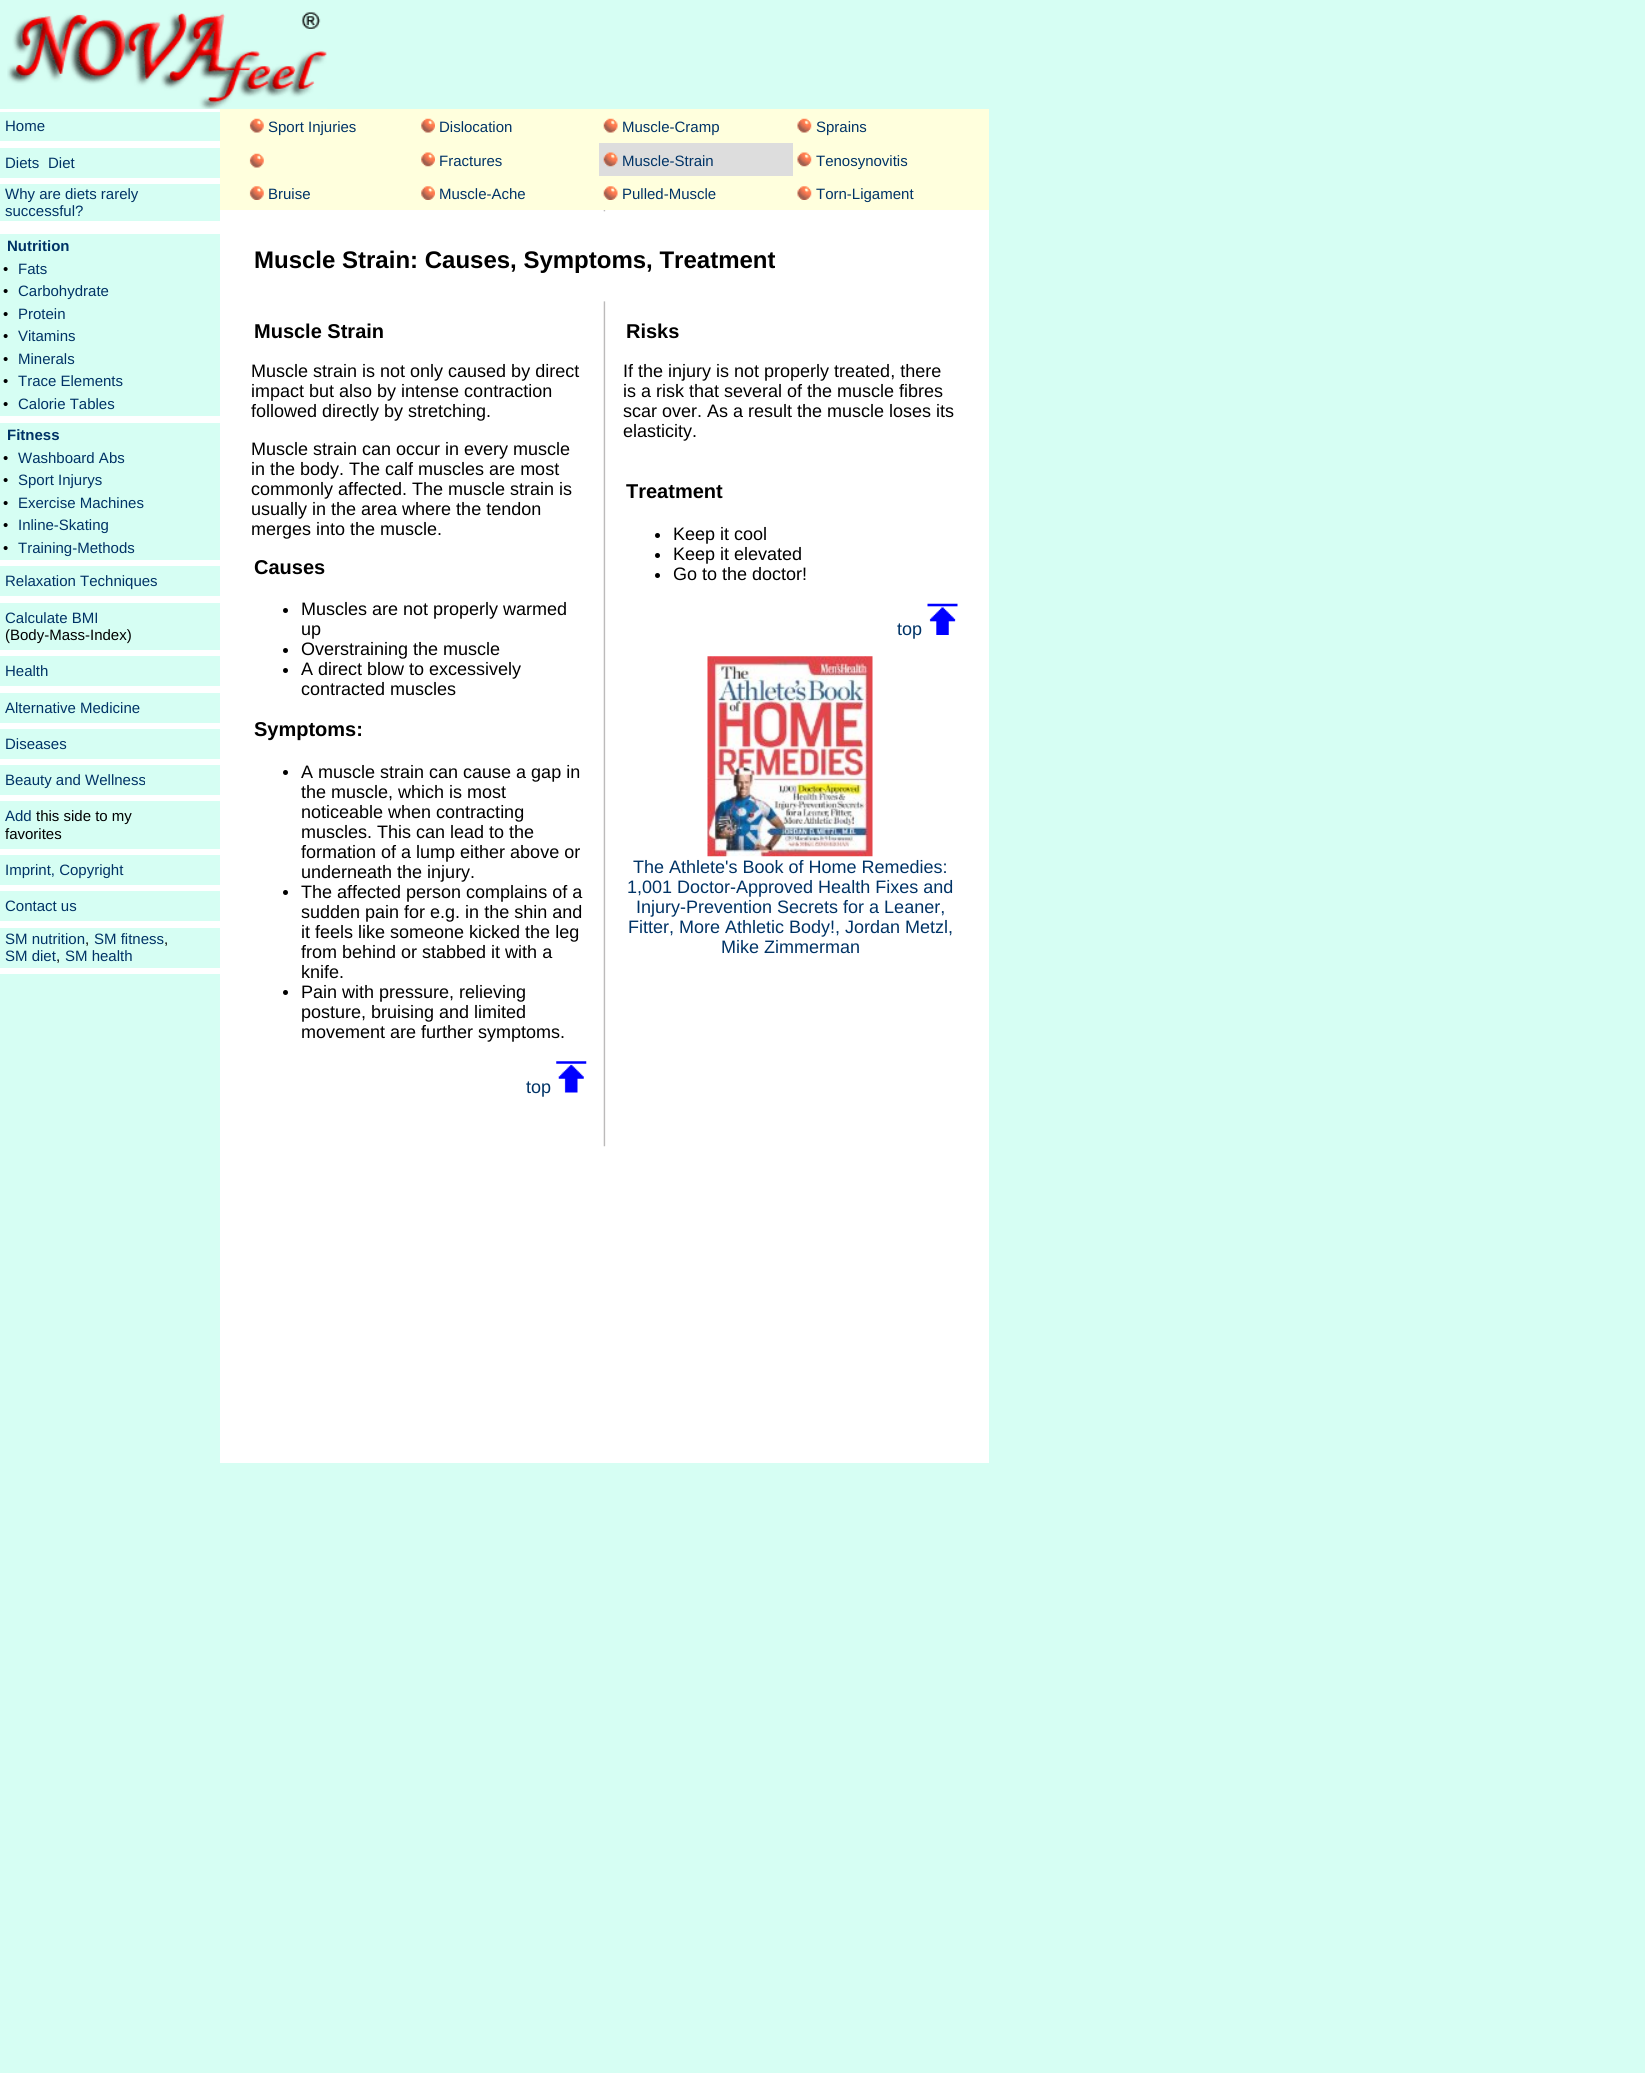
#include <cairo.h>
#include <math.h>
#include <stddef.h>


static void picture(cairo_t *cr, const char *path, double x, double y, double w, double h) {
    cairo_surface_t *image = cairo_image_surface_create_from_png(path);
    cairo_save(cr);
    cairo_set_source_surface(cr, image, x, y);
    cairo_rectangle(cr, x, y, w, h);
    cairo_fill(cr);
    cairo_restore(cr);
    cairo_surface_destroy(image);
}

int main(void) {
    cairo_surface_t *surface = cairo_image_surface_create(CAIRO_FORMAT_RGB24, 1645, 2073);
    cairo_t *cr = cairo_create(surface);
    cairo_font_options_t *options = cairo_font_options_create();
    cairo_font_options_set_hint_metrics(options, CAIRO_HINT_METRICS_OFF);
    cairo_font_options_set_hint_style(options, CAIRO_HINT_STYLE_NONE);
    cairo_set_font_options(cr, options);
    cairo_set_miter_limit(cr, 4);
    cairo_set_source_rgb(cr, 0.839, 0.996, 0.953);
    cairo_paint(cr);
    picture(cr, "img1.png", 7, 12, 320, 97);
    cairo_select_font_face(cr, "Liberation Sans", CAIRO_FONT_SLANT_NORMAL, CAIRO_FONT_WEIGHT_NORMAL);
    cairo_set_font_size(cr, 15);
    cairo_set_source_rgb(cr, 0, 0.2, 0.4);
    cairo_move_to(cr, 5, 131);
    cairo_show_text(cr, "Home");
    cairo_set_source_rgb(cr, 1, 1, 1);
    cairo_rectangle(cr, 0, 141, 220, 7);
    cairo_fill(cr);
    cairo_set_source_rgb(cr, 0, 0.2, 0.4);
    cairo_move_to(cr, 5, 168);
    cairo_show_text(cr, "Diets");
    cairo_move_to(cr, 48, 168);
    cairo_show_text(cr, "Diet");
    cairo_set_source_rgb(cr, 1, 1, 1);
    cairo_rectangle(cr, 0, 178, 220, 6);
    cairo_fill(cr);
    cairo_set_source_rgb(cr, 0, 0.2, 0.4);
    cairo_move_to(cr, 5, 199);
    cairo_show_text(cr, "Why are diets rarely");
    cairo_move_to(cr, 5, 216);
    cairo_show_text(cr, "successful?");
    cairo_set_source_rgb(cr, 1, 1, 1);
    cairo_rectangle(cr, 0, 221, 220, 13);
    cairo_fill(cr);
    cairo_select_font_face(cr, "Liberation Sans", CAIRO_FONT_SLANT_NORMAL, CAIRO_FONT_WEIGHT_BOLD);
    cairo_set_source_rgb(cr, 0, 0.2, 0.4);
    cairo_move_to(cr, 7, 251);
    cairo_show_text(cr, "Nutrition");
    cairo_select_font_face(cr, "Liberation Sans", CAIRO_FONT_SLANT_NORMAL, CAIRO_FONT_WEIGHT_NORMAL);
    cairo_set_source_rgb(cr, 0, 0, 0);
    cairo_move_to(cr, 3, 274);
    cairo_show_text(cr, "•");
    cairo_set_source_rgb(cr, 0, 0.2, 0.4);
    cairo_move_to(cr, 18, 274);
    cairo_show_text(cr, "Fats");
    cairo_set_source_rgb(cr, 0, 0, 0);
    cairo_move_to(cr, 3, 296);
    cairo_show_text(cr, "•");
    cairo_set_source_rgb(cr, 0, 0.2, 0.4);
    cairo_move_to(cr, 18, 296);
    cairo_show_text(cr, "Carbohydrate");
    cairo_set_source_rgb(cr, 0, 0, 0);
    cairo_move_to(cr, 3, 319);
    cairo_show_text(cr, "•");
    cairo_set_source_rgb(cr, 0, 0.2, 0.4);
    cairo_move_to(cr, 18, 319);
    cairo_show_text(cr, "Protein");
    cairo_set_source_rgb(cr, 0, 0, 0);
    cairo_move_to(cr, 3, 341);
    cairo_show_text(cr, "•");
    cairo_set_source_rgb(cr, 0, 0.2, 0.4);
    cairo_move_to(cr, 18, 341);
    cairo_show_text(cr, "Vitamins");
    cairo_set_source_rgb(cr, 0, 0, 0);
    cairo_move_to(cr, 3, 364);
    cairo_show_text(cr, "•");
    cairo_set_source_rgb(cr, 0, 0.2, 0.4);
    cairo_move_to(cr, 18, 364);
    cairo_show_text(cr, "Minerals");
    cairo_set_source_rgb(cr, 0, 0, 0);
    cairo_move_to(cr, 3, 386);
    cairo_show_text(cr, "•");
    cairo_set_source_rgb(cr, 0, 0.2, 0.4);
    cairo_move_to(cr, 18, 386);
    cairo_show_text(cr, "Trace Elements");
    cairo_set_source_rgb(cr, 0, 0, 0);
    cairo_move_to(cr, 3, 409);
    cairo_show_text(cr, "•");
    cairo_set_source_rgb(cr, 0, 0.2, 0.4);
    cairo_move_to(cr, 18, 409);
    cairo_show_text(cr, "Calorie Tables");
    cairo_set_source_rgb(cr, 1, 1, 1);
    cairo_rectangle(cr, 0, 416, 220, 7);
    cairo_fill(cr);
    cairo_select_font_face(cr, "Liberation Sans", CAIRO_FONT_SLANT_NORMAL, CAIRO_FONT_WEIGHT_BOLD);
    cairo_set_source_rgb(cr, 0, 0.2, 0.4);
    cairo_move_to(cr, 7, 440);
    cairo_show_text(cr, "Fitness");
    cairo_select_font_face(cr, "Liberation Sans", CAIRO_FONT_SLANT_NORMAL, CAIRO_FONT_WEIGHT_NORMAL);
    cairo_set_source_rgb(cr, 0, 0, 0);
    cairo_move_to(cr, 3, 463);
    cairo_show_text(cr, "•");
    cairo_set_source_rgb(cr, 0, 0.2, 0.4);
    cairo_move_to(cr, 18, 463);
    cairo_show_text(cr, "Washboard Abs");
    cairo_set_source_rgb(cr, 0, 0, 0);
    cairo_move_to(cr, 3, 485);
    cairo_show_text(cr, "•");
    cairo_set_source_rgb(cr, 0, 0.2, 0.4);
    cairo_move_to(cr, 18, 485);
    cairo_show_text(cr, "Sport Injurys");
    cairo_set_source_rgb(cr, 0, 0, 0);
    cairo_move_to(cr, 3, 508);
    cairo_show_text(cr, "•");
    cairo_set_source_rgb(cr, 0, 0.2, 0.4);
    cairo_move_to(cr, 18, 508);
    cairo_show_text(cr, "Exercise Machines");
    cairo_set_source_rgb(cr, 0, 0, 0);
    cairo_move_to(cr, 3, 530);
    cairo_show_text(cr, "•");
    cairo_set_source_rgb(cr, 0, 0.2, 0.4);
    cairo_move_to(cr, 18, 530);
    cairo_show_text(cr, "Inline-Skating");
    cairo_set_source_rgb(cr, 0, 0, 0);
    cairo_move_to(cr, 3, 553);
    cairo_show_text(cr, "•");
    cairo_set_source_rgb(cr, 0, 0.2, 0.4);
    cairo_move_to(cr, 18, 553);
    cairo_show_text(cr, "Training-Methods");
    cairo_set_source_rgb(cr, 1, 1, 1);
    cairo_rectangle(cr, 0, 560, 220, 6);
    cairo_fill(cr);
    cairo_set_source_rgb(cr, 0, 0.2, 0.4);
    cairo_move_to(cr, 5, 586);
    cairo_show_text(cr, "Relaxation Techniques");
    cairo_set_source_rgb(cr, 1, 1, 1);
    cairo_rectangle(cr, 0, 596, 220, 7);
    cairo_fill(cr);
    cairo_set_source_rgb(cr, 0, 0.2, 0.4);
    cairo_move_to(cr, 5, 623);
    cairo_show_text(cr, "Calculate BMI");
    cairo_set_source_rgb(cr, 0, 0, 0);
    cairo_move_to(cr, 5, 640);
    cairo_show_text(cr, "(Body-Mass-Index)");
    cairo_set_source_rgb(cr, 1, 1, 1);
    cairo_rectangle(cr, 0, 650, 220, 6);
    cairo_fill(cr);
    cairo_set_source_rgb(cr, 0, 0.2, 0.4);
    cairo_move_to(cr, 5, 676);
    cairo_show_text(cr, "Health");
    cairo_set_source_rgb(cr, 1, 1, 1);
    cairo_rectangle(cr, 0, 686, 220, 7);
    cairo_fill(cr);
    cairo_set_source_rgb(cr, 0, 0.2, 0.4);
    cairo_move_to(cr, 5, 713);
    cairo_show_text(cr, "Alternative Medicine");
    cairo_set_source_rgb(cr, 1, 1, 1);
    cairo_rectangle(cr, 0, 723, 220, 6);
    cairo_fill(cr);
    cairo_set_source_rgb(cr, 0, 0.2, 0.4);
    cairo_move_to(cr, 5, 749);
    cairo_show_text(cr, "Diseases");
    cairo_set_source_rgb(cr, 1, 1, 1);
    cairo_rectangle(cr, 0, 759, 220, 6);
    cairo_fill(cr);
    cairo_set_source_rgb(cr, 0, 0.2, 0.4);
    cairo_move_to(cr, 5, 785);
    cairo_show_text(cr, "Beauty and Wellness");
    cairo_set_source_rgb(cr, 1, 1, 1);
    cairo_rectangle(cr, 0, 795, 220, 6);
    cairo_fill(cr);
    cairo_set_source_rgb(cr, 0, 0.2, 0.4);
    cairo_move_to(cr, 5, 821);
    cairo_show_text(cr, "Add");
    cairo_set_source_rgb(cr, 0, 0, 0);
    cairo_move_to(cr, 36, 821);
    cairo_show_text(cr, "this side to my");
    cairo_move_to(cr, 5, 839);
    cairo_show_text(cr, "favorites");
    cairo_set_source_rgb(cr, 1, 1, 1);
    cairo_rectangle(cr, 0, 849, 220, 6);
    cairo_fill(cr);
    cairo_set_source_rgb(cr, 0, 0.2, 0.4);
    cairo_move_to(cr, 5, 875);
    cairo_show_text(cr, "Imprint, Copyright");
    cairo_set_source_rgb(cr, 1, 1, 1);
    cairo_rectangle(cr, 0, 885, 220, 6);
    cairo_fill(cr);
    cairo_set_source_rgb(cr, 0, 0.2, 0.4);
    cairo_move_to(cr, 5, 911);
    cairo_show_text(cr, "Contact us");
    cairo_set_source_rgb(cr, 1, 1, 1);
    cairo_rectangle(cr, 0, 921, 220, 7);
    cairo_fill(cr);
    cairo_set_source_rgb(cr, 0, 0.2, 0.4);
    cairo_move_to(cr, 5, 944);
    cairo_show_text(cr, "SM nutrition");
    cairo_set_source_rgb(cr, 0, 0, 0);
    cairo_move_to(cr, 85, 944);
    cairo_show_text(cr, ",");
    cairo_set_source_rgb(cr, 0, 0.2, 0.4);
    cairo_move_to(cr, 94, 944);
    cairo_show_text(cr, "SM fitness");
    cairo_set_source_rgb(cr, 0, 0, 0);
    cairo_move_to(cr, 164, 944);
    cairo_show_text(cr, ",");
    cairo_set_source_rgb(cr, 0, 0.2, 0.4);
    cairo_move_to(cr, 5, 961);
    cairo_show_text(cr, "SM diet");
    cairo_set_source_rgb(cr, 0, 0, 0);
    cairo_move_to(cr, 56, 961);
    cairo_show_text(cr, ",");
    cairo_set_source_rgb(cr, 0, 0.2, 0.4);
    cairo_move_to(cr, 65, 961);
    cairo_show_text(cr, "SM health");
    cairo_set_source_rgb(cr, 1, 1, 1);
    cairo_rectangle(cr, 0, 968, 220, 6);
    cairo_fill(cr);
    cairo_rectangle(cr, 0, 109, 220, 3);
    cairo_fill(cr);
    cairo_rectangle(cr, 220, 210, 769, 1253);
    cairo_fill(cr);
    cairo_set_source_rgb(cr, 1, 1, 0.867);
    cairo_rectangle(cr, 220, 109, 769, 101);
    cairo_fill(cr);
    picture(cr, "img2.png", 249, 118, 15, 15);
    cairo_set_source_rgb(cr, 0, 0.2, 0.4);
    cairo_move_to(cr, 268, 132);
    cairo_show_text(cr, "Sport Injuries");
    picture(cr, "img3.png", 421, 118, 14, 15);
    cairo_move_to(cr, 439, 132);
    cairo_show_text(cr, "Dislocation");
    picture(cr, "img4.png", 603, 118, 15, 15);
    cairo_move_to(cr, 622, 132);
    cairo_show_text(cr, "Muscle-Cramp");
    picture(cr, "img5.png", 797, 118, 15, 15);
    cairo_move_to(cr, 816, 132);
    cairo_show_text(cr, "Sprains");
    picture(cr, "img2.png", 249, 153, 15, 15);
    picture(cr, "img6.png", 421, 152, 14, 15);
    cairo_move_to(cr, 439, 166);
    cairo_show_text(cr, "Fractures");
    cairo_set_source_rgb(cr, 0.867, 0.867, 0.867);
    cairo_rectangle(cr, 599, 143, 194, 33);
    cairo_fill(cr);
    picture(cr, "img7.png", 603, 152, 15, 15);
    cairo_set_source_rgb(cr, 0, 0.2, 0.4);
    cairo_move_to(cr, 622, 166);
    cairo_show_text(cr, "Muscle-Strain");
    picture(cr, "img8.png", 797, 152, 15, 15);
    cairo_move_to(cr, 816, 166);
    cairo_show_text(cr, "Tenosynovitis");
    picture(cr, "img9.png", 249, 186, 15, 14);
    cairo_move_to(cr, 268, 199);
    cairo_show_text(cr, "Bruise");
    picture(cr, "img10.png", 421, 186, 14, 14);
    cairo_move_to(cr, 439, 199);
    cairo_show_text(cr, "Muscle-Ache");
    picture(cr, "img11.png", 603, 186, 15, 14);
    cairo_move_to(cr, 622, 199);
    cairo_show_text(cr, "Pulled-Muscle");
    picture(cr, "img12.png", 797, 186, 15, 14);
    cairo_move_to(cr, 816, 199);
    cairo_show_text(cr, "Torn-Ligament");
    picture(cr, "img13.png", 603, 210, 3, 937);
    cairo_select_font_face(cr, "Liberation Sans", CAIRO_FONT_SLANT_NORMAL, CAIRO_FONT_WEIGHT_BOLD);
    cairo_set_font_size(cr, 24);
    cairo_set_source_rgb(cr, 0, 0, 0);
    cairo_move_to(cr, 254, 268);
    cairo_show_text(cr, "Muscle Strain: Causes, Symptoms, Treatment");
    cairo_set_font_size(cr, 20);
    cairo_move_to(cr, 254, 338);
    cairo_show_text(cr, "Muscle Strain");
    cairo_select_font_face(cr, "Liberation Sans", CAIRO_FONT_SLANT_NORMAL, CAIRO_FONT_WEIGHT_NORMAL);
    cairo_set_font_size(cr, 18);
    cairo_move_to(cr, 251, 377);
    cairo_show_text(cr, "Muscle strain is not only caused by direct");
    cairo_move_to(cr, 251, 397);
    cairo_show_text(cr, "impact but also by intense contraction");
    cairo_move_to(cr, 251, 417);
    cairo_show_text(cr, "followed directly by stretching.");
    cairo_move_to(cr, 251, 455);
    cairo_show_text(cr, "Muscle strain can occur in every muscle");
    cairo_move_to(cr, 251, 475);
    cairo_show_text(cr, "in the body. The calf muscles are most");
    cairo_move_to(cr, 251, 495);
    cairo_show_text(cr, "commonly affected. The muscle strain is");
    cairo_move_to(cr, 251, 515);
    cairo_show_text(cr, "usually in the area where the tendon");
    cairo_move_to(cr, 251, 535);
    cairo_show_text(cr, "merges into the muscle.");
    cairo_select_font_face(cr, "Liberation Sans", CAIRO_FONT_SLANT_NORMAL, CAIRO_FONT_WEIGHT_BOLD);
    cairo_set_font_size(cr, 20);
    cairo_move_to(cr, 254, 574);
    cairo_show_text(cr, "Causes");
    cairo_new_path(cr);
    cairo_arc(cr, 285.5, 610.5, 2.5, 0, 2 * M_PI);
    cairo_fill(cr);
    cairo_select_font_face(cr, "Liberation Sans", CAIRO_FONT_SLANT_NORMAL, CAIRO_FONT_WEIGHT_NORMAL);
    cairo_set_font_size(cr, 18);
    cairo_move_to(cr, 301, 615);
    cairo_show_text(cr, "Muscles are not properly warmed");
    cairo_move_to(cr, 301, 635);
    cairo_show_text(cr, "up");
    cairo_new_path(cr);
    cairo_arc(cr, 285.5, 650.5, 2.5, 0, 2 * M_PI);
    cairo_fill(cr);
    cairo_move_to(cr, 301, 655);
    cairo_show_text(cr, "Overstraining the muscle");
    cairo_new_path(cr);
    cairo_arc(cr, 285.5, 670.5, 2.5, 0, 2 * M_PI);
    cairo_fill(cr);
    cairo_move_to(cr, 301, 675);
    cairo_show_text(cr, "A direct blow to excessively");
    cairo_move_to(cr, 301, 695);
    cairo_show_text(cr, "contracted muscles");
    cairo_select_font_face(cr, "Liberation Sans", CAIRO_FONT_SLANT_NORMAL, CAIRO_FONT_WEIGHT_BOLD);
    cairo_set_font_size(cr, 20);
    cairo_move_to(cr, 254, 736);
    cairo_show_text(cr, "Symptoms:");
    cairo_new_path(cr);
    cairo_arc(cr, 285.5, 772.5, 2.5, 0, 2 * M_PI);
    cairo_fill(cr);
    cairo_select_font_face(cr, "Liberation Sans", CAIRO_FONT_SLANT_NORMAL, CAIRO_FONT_WEIGHT_NORMAL);
    cairo_set_font_size(cr, 18);
    cairo_move_to(cr, 301, 778);
    cairo_show_text(cr, "A muscle strain can cause a gap in");
    cairo_move_to(cr, 301, 798);
    cairo_show_text(cr, "the muscle, which is most");
    cairo_move_to(cr, 301, 818);
    cairo_show_text(cr, "noticeable when contracting");
    cairo_move_to(cr, 301, 838);
    cairo_show_text(cr, "muscles. This can lead to the");
    cairo_move_to(cr, 301, 858);
    cairo_show_text(cr, "formation of a lump either above or");
    cairo_move_to(cr, 301, 878);
    cairo_show_text(cr, "underneath the injury.");
    cairo_new_path(cr);
    cairo_arc(cr, 285.5, 892.5, 2.5, 0, 2 * M_PI);
    cairo_fill(cr);
    cairo_move_to(cr, 301, 898);
    cairo_show_text(cr, "The affected person complains of a");
    cairo_move_to(cr, 301, 918);
    cairo_show_text(cr, "sudden pain for e.g. in the shin and");
    cairo_move_to(cr, 301, 938);
    cairo_show_text(cr, "it feels like someone kicked the leg");
    cairo_move_to(cr, 301, 958);
    cairo_show_text(cr, "from behind or stabbed it with a");
    cairo_move_to(cr, 301, 978);
    cairo_show_text(cr, "knife.");
    cairo_new_path(cr);
    cairo_arc(cr, 285.5, 992.5, 2.5, 0, 2 * M_PI);
    cairo_fill(cr);
    cairo_move_to(cr, 301, 998);
    cairo_show_text(cr, "Pain with pressure, relieving");
    cairo_move_to(cr, 301, 1018);
    cairo_show_text(cr, "posture, bruising and limited");
    cairo_move_to(cr, 301, 1038);
    cairo_show_text(cr, "movement are further symptoms.");
    cairo_set_source_rgb(cr, 0, 0.2, 0.4);
    cairo_move_to(cr, 526, 1093);
    cairo_show_text(cr, "top");
    picture(cr, "img14.png", 556, 1061, 31, 32);
    cairo_select_font_face(cr, "Liberation Sans", CAIRO_FONT_SLANT_NORMAL, CAIRO_FONT_WEIGHT_BOLD);
    cairo_set_font_size(cr, 20);
    cairo_set_source_rgb(cr, 0, 0, 0);
    cairo_move_to(cr, 626, 338);
    cairo_show_text(cr, "Risks");
    cairo_select_font_face(cr, "Liberation Sans", CAIRO_FONT_SLANT_NORMAL, CAIRO_FONT_WEIGHT_NORMAL);
    cairo_set_font_size(cr, 18);
    cairo_move_to(cr, 623, 377);
    cairo_show_text(cr, "If the injury is not properly treated, there");
    cairo_move_to(cr, 623, 397);
    cairo_show_text(cr, "is a risk that several of the muscle fibres");
    cairo_move_to(cr, 623, 417);
    cairo_show_text(cr, "scar over. As a result the muscle loses its");
    cairo_move_to(cr, 623, 437);
    cairo_show_text(cr, "elasticity.");
    cairo_select_font_face(cr, "Liberation Sans", CAIRO_FONT_SLANT_NORMAL, CAIRO_FONT_WEIGHT_BOLD);
    cairo_set_font_size(cr, 20);
    cairo_move_to(cr, 626, 498);
    cairo_show_text(cr, "Treatment");
    cairo_new_path(cr);
    cairo_arc(cr, 657.5, 535.5, 2.5, 0, 2 * M_PI);
    cairo_fill(cr);
    cairo_select_font_face(cr, "Liberation Sans", CAIRO_FONT_SLANT_NORMAL, CAIRO_FONT_WEIGHT_NORMAL);
    cairo_set_font_size(cr, 18);
    cairo_move_to(cr, 673, 540);
    cairo_show_text(cr, "Keep it cool");
    cairo_new_path(cr);
    cairo_arc(cr, 657.5, 555.5, 2.5, 0, 2 * M_PI);
    cairo_fill(cr);
    cairo_move_to(cr, 673, 560);
    cairo_show_text(cr, "Keep it elevated");
    cairo_new_path(cr);
    cairo_arc(cr, 657.5, 575.5, 2.5, 0, 2 * M_PI);
    cairo_fill(cr);
    cairo_move_to(cr, 673, 580);
    cairo_show_text(cr, "Go to the doctor!");
    cairo_set_source_rgb(cr, 0, 0.2, 0.4);
    cairo_move_to(cr, 897, 635);
    cairo_show_text(cr, "top");
    picture(cr, "img15.png", 927, 603, 31, 32);
    picture(cr, "img16.png", 707, 656, 166, 201);
    cairo_move_to(cr, 633, 873);
    cairo_show_text(cr, "The Athlete's Book of Home Remedies:");
    cairo_move_to(cr, 627, 893);
    cairo_show_text(cr, "1,001 Doctor-Approved Health Fixes and");
    cairo_move_to(cr, 636, 913);
    cairo_show_text(cr, "Injury-Prevention Secrets for a Leaner,");
    cairo_move_to(cr, 628, 933);
    cairo_show_text(cr, "Fitter, More Athletic Body!, Jordan Metzl,");
    cairo_move_to(cr, 721, 953);
    cairo_show_text(cr, "Mike Zimmerman");
    cairo_surface_write_to_png(surface, "page.png");
    cairo_font_options_destroy(options);
    cairo_destroy(cr);
    cairo_surface_destroy(surface);
    return 0;
}
